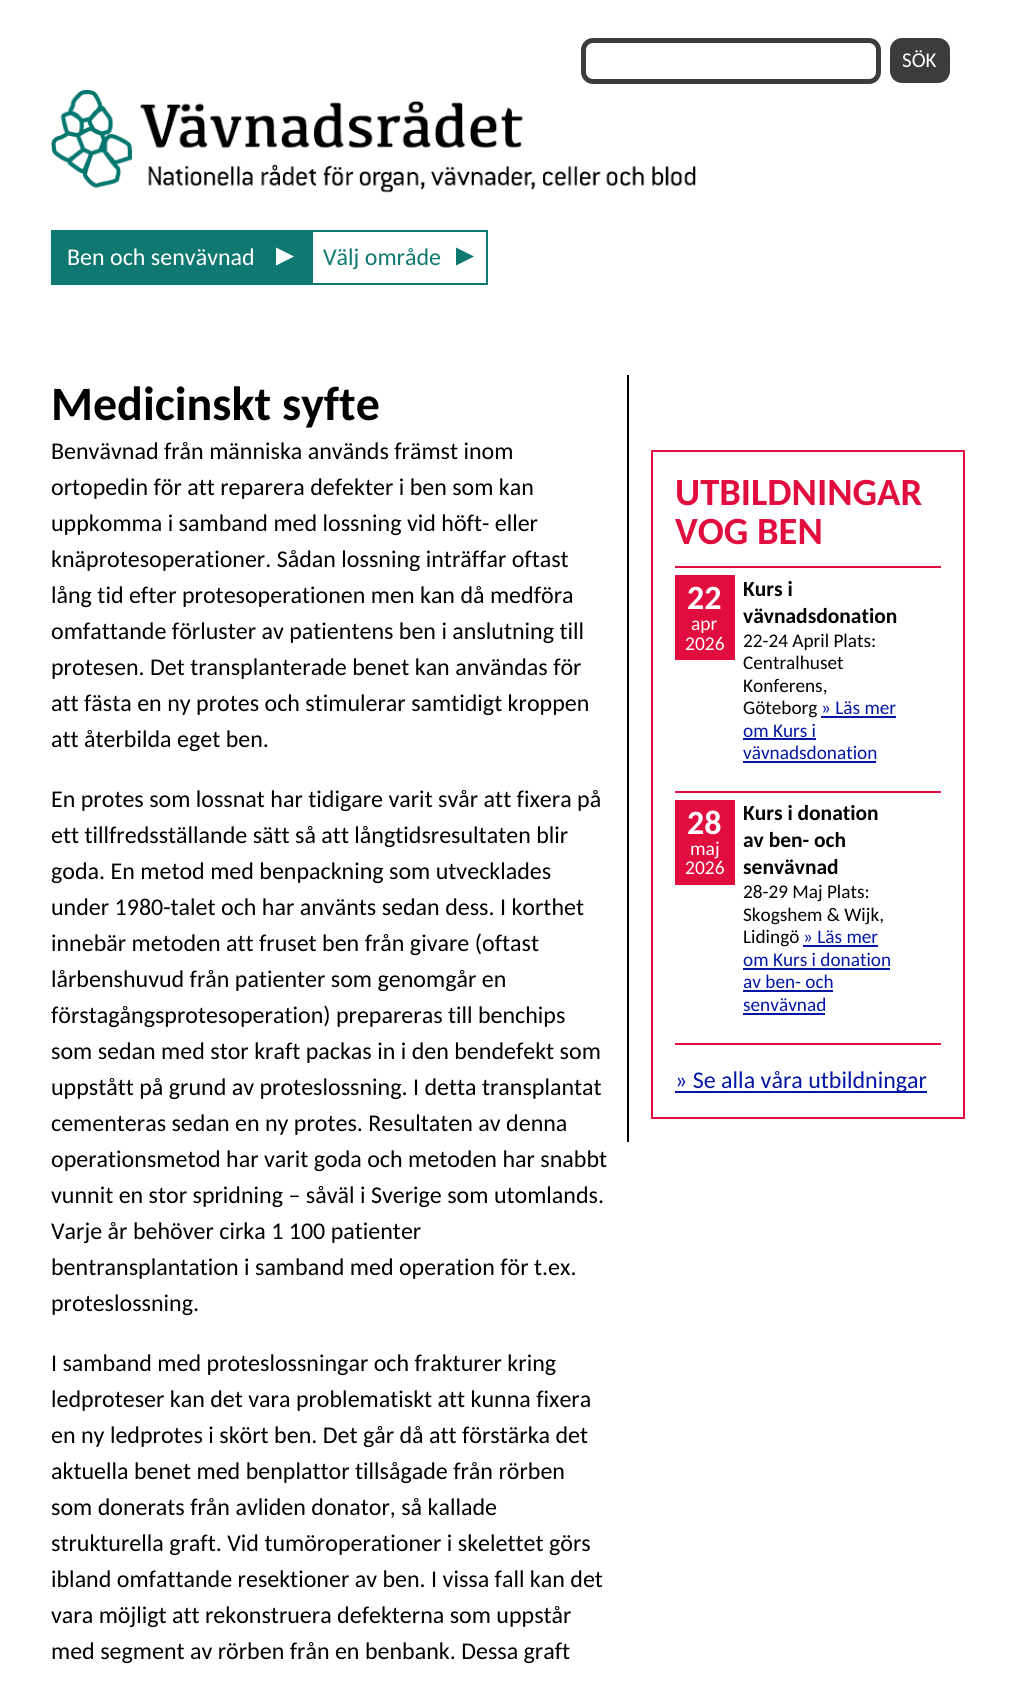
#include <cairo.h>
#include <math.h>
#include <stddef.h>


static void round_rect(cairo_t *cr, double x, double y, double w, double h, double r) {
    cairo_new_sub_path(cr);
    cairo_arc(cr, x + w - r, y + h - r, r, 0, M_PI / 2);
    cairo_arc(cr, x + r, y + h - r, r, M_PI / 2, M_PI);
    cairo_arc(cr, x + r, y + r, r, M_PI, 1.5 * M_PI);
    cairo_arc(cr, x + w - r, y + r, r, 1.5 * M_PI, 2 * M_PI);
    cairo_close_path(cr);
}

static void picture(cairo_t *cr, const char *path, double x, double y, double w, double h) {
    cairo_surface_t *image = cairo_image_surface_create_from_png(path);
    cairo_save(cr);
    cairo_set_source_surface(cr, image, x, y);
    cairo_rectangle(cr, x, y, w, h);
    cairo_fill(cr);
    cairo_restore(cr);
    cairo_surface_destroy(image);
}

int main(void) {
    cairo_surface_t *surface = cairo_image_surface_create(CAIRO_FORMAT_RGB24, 1015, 1687);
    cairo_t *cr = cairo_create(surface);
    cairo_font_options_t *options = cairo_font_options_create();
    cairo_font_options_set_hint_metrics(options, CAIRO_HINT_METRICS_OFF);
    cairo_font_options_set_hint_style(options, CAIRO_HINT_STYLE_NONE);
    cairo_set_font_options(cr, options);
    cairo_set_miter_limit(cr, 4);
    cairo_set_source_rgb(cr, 1, 1, 1);
    cairo_paint(cr);
    round_rect(cr, 583.5, 40.5, 295, 41, 9.5);
    cairo_set_source_rgb(cr, 0.235, 0.235, 0.235);
    cairo_set_line_width(cr, 5);
    cairo_stroke(cr);
    round_rect(cr, 890, 38, 60, 45, 12);
    cairo_fill(cr);
    cairo_select_font_face(cr, "Carlito", CAIRO_FONT_SLANT_NORMAL, CAIRO_FONT_WEIGHT_NORMAL);
    cairo_set_font_size(cr, 21);
    cairo_set_source_rgb(cr, 1, 1, 1);
    cairo_move_to(cr, 902, 67);
    cairo_show_text(cr, "SÖK");
    picture(cr, "img1.png", 51, 90, 645, 103);
    cairo_set_source_rgb(cr, 0.059, 0.471, 0.439);
    cairo_rectangle(cr, 51, 230, 260, 55);
    cairo_fill(cr);
    cairo_set_font_size(cr, 24);
    cairo_set_source_rgb(cr, 1, 1, 1);
    cairo_move_to(cr, 67, 265);
    cairo_show_text(cr, "Ben och senvävnad");
    cairo_new_path(cr);
    cairo_move_to(cr, 276, 265.5);
    cairo_line_to(cr, 276, 247.5);
    cairo_line_to(cr, 294, 256.5);
    cairo_close_path(cr);
    cairo_fill(cr);
    cairo_rectangle(cr, 312, 231, 175, 53);
    cairo_set_source_rgb(cr, 0.059, 0.471, 0.439);
    cairo_set_line_width(cr, 2);
    cairo_stroke(cr);
    cairo_move_to(cr, 323, 265);
    cairo_show_text(cr, "Välj område");
    cairo_new_path(cr);
    cairo_move_to(cr, 456, 265.5);
    cairo_line_to(cr, 456, 247.5);
    cairo_line_to(cr, 474, 256.5);
    cairo_close_path(cr);
    cairo_fill(cr);
    cairo_select_font_face(cr, "Carlito", CAIRO_FONT_SLANT_NORMAL, CAIRO_FONT_WEIGHT_BOLD);
    cairo_set_font_size(cr, 48);
    cairo_set_source_rgb(cr, 0, 0, 0);
    cairo_move_to(cr, 51, 420);
    cairo_show_text(cr, "Medicinskt syfte");
    cairo_select_font_face(cr, "Carlito", CAIRO_FONT_SLANT_NORMAL, CAIRO_FONT_WEIGHT_NORMAL);
    cairo_set_font_size(cr, 24);
    cairo_move_to(cr, 51, 459);
    cairo_show_text(cr, "Benvävnad från människa används främst inom");
    cairo_move_to(cr, 51, 495);
    cairo_show_text(cr, "ortopedin för att reparera defekter i ben som kan");
    cairo_move_to(cr, 51, 531);
    cairo_show_text(cr, "uppkomma i samband med lossning vid höft- eller");
    cairo_move_to(cr, 51, 567);
    cairo_show_text(cr, "knäprotesoperationer. Sådan lossning inträffar oftast");
    cairo_move_to(cr, 51, 603);
    cairo_show_text(cr, "lång tid efter protesoperationen men kan då medföra");
    cairo_move_to(cr, 51, 639);
    cairo_show_text(cr, "omfattande förluster av patientens ben i anslutning till");
    cairo_move_to(cr, 51, 675);
    cairo_show_text(cr, "protesen. Det transplanterade benet kan användas för");
    cairo_move_to(cr, 51, 711);
    cairo_show_text(cr, "att fästa en ny protes och stimulerar samtidigt kroppen");
    cairo_move_to(cr, 51, 747);
    cairo_show_text(cr, "att återbilda eget ben.");
    cairo_move_to(cr, 51, 807);
    cairo_show_text(cr, "En protes som lossnat har tidigare varit svår att fixera på");
    cairo_move_to(cr, 51, 843);
    cairo_show_text(cr, "ett tillfredsställande sätt så att långtidsresultaten blir");
    cairo_move_to(cr, 51, 879);
    cairo_show_text(cr, "goda. En metod med benpackning som utvecklades");
    cairo_move_to(cr, 51, 915);
    cairo_show_text(cr, "under 1980-talet och har använts sedan dess. I korthet");
    cairo_move_to(cr, 51, 951);
    cairo_show_text(cr, "innebär metoden att fruset ben från givare (oftast");
    cairo_move_to(cr, 51, 987);
    cairo_show_text(cr, "lårbenshuvud från patienter som genomgår en");
    cairo_move_to(cr, 51, 1023);
    cairo_show_text(cr, "förstagångsprotesoperation) prepareras till benchips");
    cairo_move_to(cr, 51, 1059);
    cairo_show_text(cr, "som sedan med stor kraft packas in i den bendefekt som");
    cairo_move_to(cr, 51, 1095);
    cairo_show_text(cr, "uppstått på grund av proteslossning. I detta transplantat");
    cairo_move_to(cr, 51, 1131);
    cairo_show_text(cr, "cementeras sedan en ny protes. Resultaten av denna");
    cairo_move_to(cr, 51, 1167);
    cairo_show_text(cr, "operationsmetod har varit goda och metoden har snabbt");
    cairo_move_to(cr, 51, 1203);
    cairo_show_text(cr, "vunnit en stor spridning – såväl i Sverige som utomlands.");
    cairo_move_to(cr, 51, 1239);
    cairo_show_text(cr, "Varje år behöver cirka 1 100 patienter");
    cairo_move_to(cr, 51, 1275);
    cairo_show_text(cr, "bentransplantation i samband med operation för t.ex.");
    cairo_move_to(cr, 51, 1311);
    cairo_show_text(cr, "proteslossning.");
    cairo_move_to(cr, 51, 1371);
    cairo_show_text(cr, "I samband med proteslossningar och frakturer kring");
    cairo_move_to(cr, 51, 1407);
    cairo_show_text(cr, "ledproteser kan det vara problematiskt att kunna fixera");
    cairo_move_to(cr, 51, 1443);
    cairo_show_text(cr, "en ny ledprotes i skört ben. Det går då att förstärka det");
    cairo_move_to(cr, 51, 1479);
    cairo_show_text(cr, "aktuella benet med benplattor tillsågade från rörben");
    cairo_move_to(cr, 51, 1515);
    cairo_show_text(cr, "som donerats från avliden donator, så kallade");
    cairo_move_to(cr, 51, 1551);
    cairo_show_text(cr, "strukturella graft. Vid tumöroperationer i skelettet görs");
    cairo_move_to(cr, 51, 1587);
    cairo_show_text(cr, "ibland omfattande resektioner av ben. I vissa fall kan det");
    cairo_move_to(cr, 51, 1623);
    cairo_show_text(cr, "vara möjligt att rekonstruera defekterna som uppstår");
    cairo_move_to(cr, 51, 1659);
    cairo_show_text(cr, "med segment av rörben från en benbank. Dessa graft");
    cairo_rectangle(cr, 627, 375, 2, 767);
    cairo_fill(cr);
    cairo_rectangle(cr, 652, 451, 312, 667);
    cairo_set_source_rgb(cr, 0.882, 0.051, 0.247);
    cairo_stroke(cr);
    cairo_rectangle(cr, 675, 566, 266, 2);
    cairo_fill(cr);
    cairo_select_font_face(cr, "Carlito", CAIRO_FONT_SLANT_NORMAL, CAIRO_FONT_WEIGHT_BOLD);
    cairo_set_font_size(cr, 38.5);
    cairo_move_to(cr, 675, 505);
    cairo_show_text(cr, "UTBILDNINGAR");
    cairo_move_to(cr, 675, 544);
    cairo_show_text(cr, "VOG BEN");
    cairo_rectangle(cr, 675, 791, 266, 2);
    cairo_fill(cr);
    cairo_rectangle(cr, 675, 575, 60, 85);
    cairo_fill(cr);
    cairo_set_font_size(cr, 34);
    cairo_set_source_rgb(cr, 1, 1, 1);
    cairo_move_to(cr, 687, 609);
    cairo_show_text(cr, "22");
    cairo_select_font_face(cr, "Carlito", CAIRO_FONT_SLANT_NORMAL, CAIRO_FONT_WEIGHT_NORMAL);
    cairo_set_font_size(cr, 19.5);
    cairo_move_to(cr, 691, 630);
    cairo_show_text(cr, "apr");
    cairo_move_to(cr, 685, 650);
    cairo_show_text(cr, "2026");
    cairo_select_font_face(cr, "Carlito", CAIRO_FONT_SLANT_NORMAL, CAIRO_FONT_WEIGHT_BOLD);
    cairo_set_font_size(cr, 21.5);
    cairo_set_source_rgb(cr, 0, 0, 0);
    cairo_move_to(cr, 743, 596);
    cairo_show_text(cr, "Kurs i");
    cairo_move_to(cr, 743, 623);
    cairo_show_text(cr, "vävnadsdonation");
    cairo_select_font_face(cr, "Carlito", CAIRO_FONT_SLANT_NORMAL, CAIRO_FONT_WEIGHT_NORMAL);
    cairo_set_font_size(cr, 19.25);
    cairo_move_to(cr, 743, 647);
    cairo_show_text(cr, "22-24 April Plats:");
    cairo_move_to(cr, 743, 669);
    cairo_show_text(cr, "Centralhuset");
    cairo_move_to(cr, 743, 692);
    cairo_show_text(cr, "Konferens,");
    cairo_move_to(cr, 743, 714);
    cairo_show_text(cr, "Göteborg");
    cairo_set_source_rgb(cr, 0.012, 0.086, 0.643);
    cairo_move_to(cr, 821, 714);
    cairo_show_text(cr, "» Läs mer");
    cairo_rectangle(cr, 821, 716, 75, 2);
    cairo_fill(cr);
    cairo_move_to(cr, 743, 737);
    cairo_show_text(cr, "om Kurs i");
    cairo_rectangle(cr, 743, 738, 73, 2);
    cairo_fill(cr);
    cairo_move_to(cr, 743, 759);
    cairo_show_text(cr, "vävnadsdonation");
    cairo_rectangle(cr, 743, 761, 133, 2);
    cairo_fill(cr);
    cairo_set_source_rgb(cr, 0.882, 0.051, 0.247);
    cairo_rectangle(cr, 675, 1043, 266, 2);
    cairo_fill(cr);
    cairo_rectangle(cr, 675, 800, 60, 85);
    cairo_fill(cr);
    cairo_select_font_face(cr, "Carlito", CAIRO_FONT_SLANT_NORMAL, CAIRO_FONT_WEIGHT_BOLD);
    cairo_set_font_size(cr, 34);
    cairo_set_source_rgb(cr, 1, 1, 1);
    cairo_move_to(cr, 687, 834);
    cairo_show_text(cr, "28");
    cairo_select_font_face(cr, "Carlito", CAIRO_FONT_SLANT_NORMAL, CAIRO_FONT_WEIGHT_NORMAL);
    cairo_set_font_size(cr, 19.5);
    cairo_move_to(cr, 690, 855);
    cairo_show_text(cr, "maj");
    cairo_move_to(cr, 685, 874);
    cairo_show_text(cr, "2026");
    cairo_select_font_face(cr, "Carlito", CAIRO_FONT_SLANT_NORMAL, CAIRO_FONT_WEIGHT_BOLD);
    cairo_set_font_size(cr, 21.5);
    cairo_set_source_rgb(cr, 0, 0, 0);
    cairo_move_to(cr, 743, 820);
    cairo_show_text(cr, "Kurs i donation");
    cairo_move_to(cr, 743, 847);
    cairo_show_text(cr, "av ben- och");
    cairo_move_to(cr, 743, 874);
    cairo_show_text(cr, "senvävnad");
    cairo_select_font_face(cr, "Carlito", CAIRO_FONT_SLANT_NORMAL, CAIRO_FONT_WEIGHT_NORMAL);
    cairo_set_font_size(cr, 19.25);
    cairo_move_to(cr, 743, 898);
    cairo_show_text(cr, "28-29 Maj Plats:");
    cairo_move_to(cr, 743, 921);
    cairo_show_text(cr, "Skogshem & Wijk,");
    cairo_move_to(cr, 743, 943);
    cairo_show_text(cr, "Lidingö");
    cairo_set_source_rgb(cr, 0.012, 0.086, 0.643);
    cairo_move_to(cr, 803, 943);
    cairo_show_text(cr, "» Läs mer");
    cairo_rectangle(cr, 803, 945, 75, 2);
    cairo_fill(cr);
    cairo_move_to(cr, 743, 966);
    cairo_show_text(cr, "om Kurs i donation");
    cairo_rectangle(cr, 743, 968, 147, 2);
    cairo_fill(cr);
    cairo_move_to(cr, 743, 988);
    cairo_show_text(cr, "av ben- och");
    cairo_rectangle(cr, 743, 990, 90, 2);
    cairo_fill(cr);
    cairo_move_to(cr, 743, 1011);
    cairo_show_text(cr, "senvävnad");
    cairo_rectangle(cr, 743, 1013, 82, 2);
    cairo_fill(cr);
    cairo_rectangle(cr, 675, 1091, 252, 2);
    cairo_fill(cr);
    cairo_set_font_size(cr, 24);
    cairo_move_to(cr, 675, 1088);
    cairo_show_text(cr, "» Se alla våra utbildningar");
    cairo_surface_write_to_png(surface, "page.png");
    cairo_font_options_destroy(options);
    cairo_destroy(cr);
    cairo_surface_destroy(surface);
    return 0;
}
